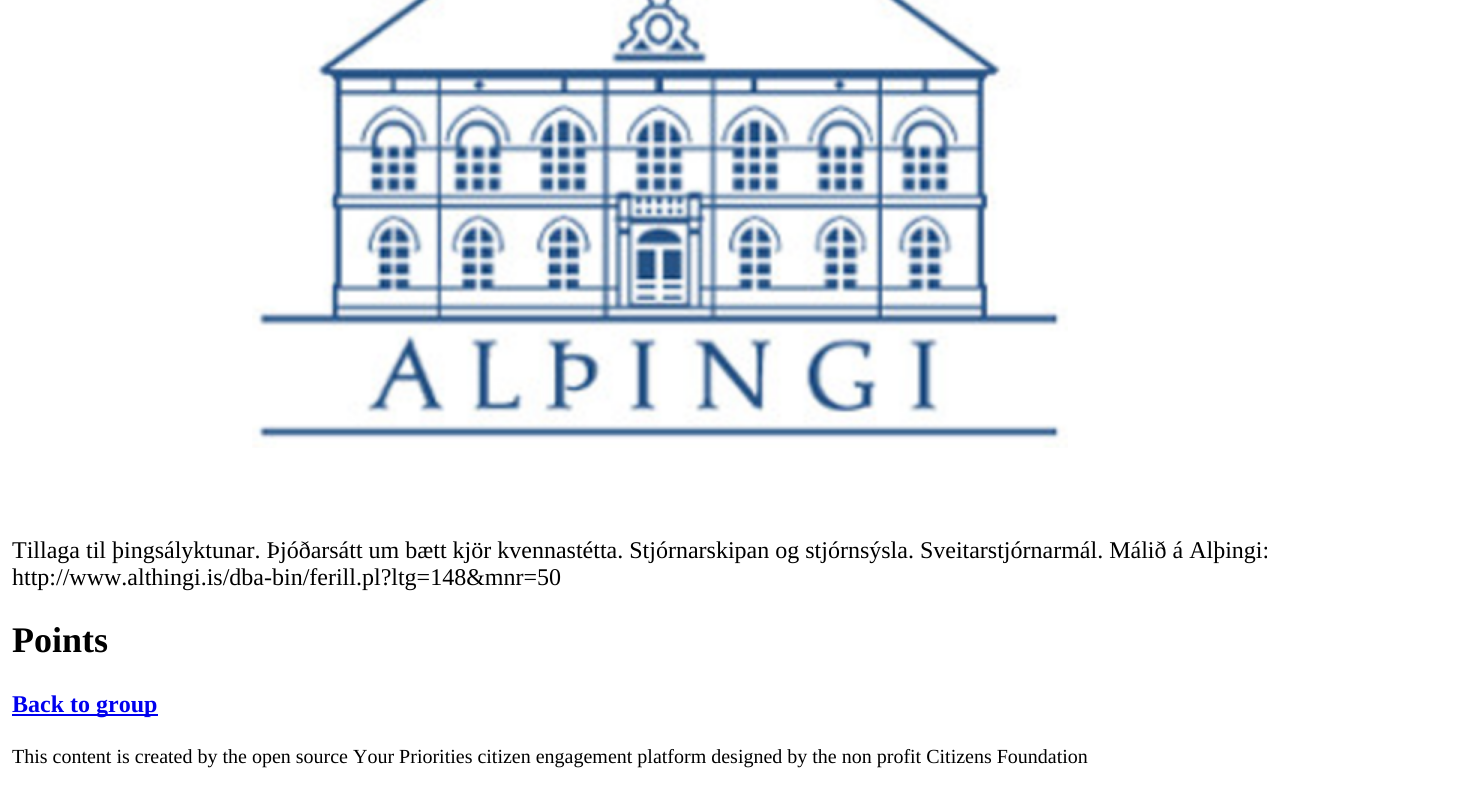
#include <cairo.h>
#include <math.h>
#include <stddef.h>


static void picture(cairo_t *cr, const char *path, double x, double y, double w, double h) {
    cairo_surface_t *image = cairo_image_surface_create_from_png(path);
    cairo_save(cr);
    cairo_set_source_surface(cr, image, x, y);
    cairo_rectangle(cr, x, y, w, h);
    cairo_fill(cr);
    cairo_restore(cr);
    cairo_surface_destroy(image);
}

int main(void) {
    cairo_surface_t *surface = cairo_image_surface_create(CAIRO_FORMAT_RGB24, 1466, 787);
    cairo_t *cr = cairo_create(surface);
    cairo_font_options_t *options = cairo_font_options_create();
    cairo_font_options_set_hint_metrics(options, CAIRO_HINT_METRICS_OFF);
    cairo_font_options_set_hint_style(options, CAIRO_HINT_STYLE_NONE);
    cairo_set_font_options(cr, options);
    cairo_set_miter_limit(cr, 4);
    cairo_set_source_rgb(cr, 1, 1, 1);
    cairo_paint(cr);
    picture(cr, "img1.png", 252, 0, 816, 448);
    cairo_select_font_face(cr, "Liberation Serif", CAIRO_FONT_SLANT_NORMAL, CAIRO_FONT_WEIGHT_NORMAL);
    cairo_set_font_size(cr, 24);
    cairo_set_source_rgb(cr, 0, 0, 0);
    cairo_move_to(cr, 12, 558);
    cairo_show_text(cr, "Tillaga til þingsályktunar. Þjóðarsátt um bætt kjör kvennastétta. Stjórnarskipan og stjórnsýsla. Sveitarstjórnarmál. Málið á Alþingi:");
    cairo_move_to(cr, 12, 585);
    cairo_show_text(cr, "http://www.althingi.is/dba-bin/ferill.pl?ltg=148&mnr=50");
    cairo_select_font_face(cr, "Liberation Serif", CAIRO_FONT_SLANT_NORMAL, CAIRO_FONT_WEIGHT_BOLD);
    cairo_set_font_size(cr, 36);
    cairo_move_to(cr, 12, 652);
    cairo_show_text(cr, "Points");
    cairo_set_source_rgb(cr, 0, 0, 0.933);
    cairo_rectangle(cr, 12, 714, 146, 2);
    cairo_fill(cr);
    cairo_set_font_size(cr, 24);
    cairo_move_to(cr, 12, 712);
    cairo_show_text(cr, "Back to group");
    cairo_select_font_face(cr, "Liberation Serif", CAIRO_FONT_SLANT_NORMAL, CAIRO_FONT_WEIGHT_NORMAL);
    cairo_set_font_size(cr, 20);
    cairo_set_source_rgb(cr, 0, 0, 0);
    cairo_move_to(cr, 12, 763);
    cairo_show_text(cr, "This content is created by the open source Your Priorities citizen engagement platform designed by the non profit Citizens Foundation");
    cairo_surface_write_to_png(surface, "page.png");
    cairo_font_options_destroy(options);
    cairo_destroy(cr);
    cairo_surface_destroy(surface);
    return 0;
}
